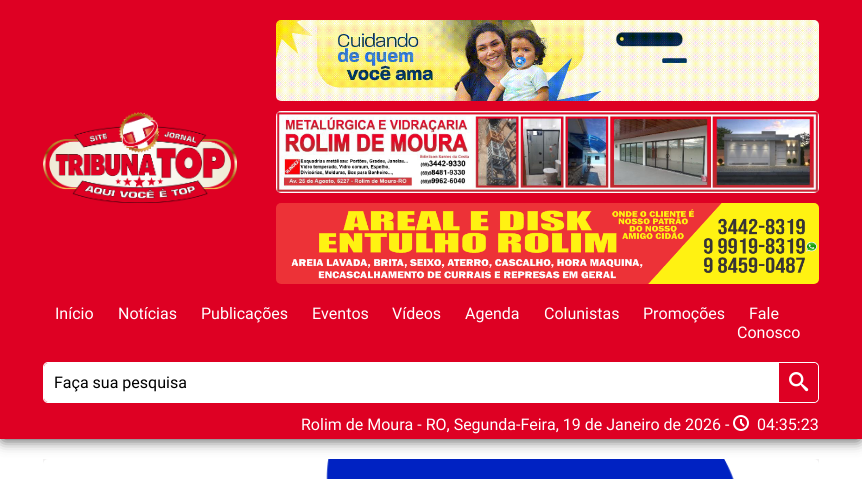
#include <cairo.h>
#include <math.h>
#include <stddef.h>


static void round_rect(cairo_t *cr, double x, double y, double w, double h, double r) {
    cairo_new_sub_path(cr);
    cairo_arc(cr, x + w - r, y + h - r, r, 0, M_PI / 2);
    cairo_arc(cr, x + r, y + h - r, r, M_PI / 2, M_PI);
    cairo_arc(cr, x + r, y + r, r, M_PI, 1.5 * M_PI);
    cairo_arc(cr, x + w - r, y + r, r, 1.5 * M_PI, 2 * M_PI);
    cairo_close_path(cr);
}

static void shadow(cairo_t *cr, double x, double y, double w, double h, double r, double blur, double alpha) {
    cairo_push_group_with_content(cr, CAIRO_CONTENT_ALPHA);
    cairo_set_operator(cr, CAIRO_OPERATOR_SOURCE);
    for (int i = 15; i >= -15 && fmin(w, h) + blur * i / 3 > 0; i -= 2) {
        double e = blur * i / 6;
        cairo_set_source_rgba(cr, 0, 0, 0, alpha * erfc((i - 1) / 8.5) / 2);
        round_rect(cr, x - e, y - e, w + 2 * e, h + 2 * e, fmax(0, fmin(r + e + blur * .6, fmin(w, h) / 2 + e)));
        cairo_fill(cr);
    }
    cairo_pattern_t *soft = cairo_pop_group(cr);
    cairo_mask(cr, soft);
    cairo_pattern_destroy(soft);
}

static void picture(cairo_t *cr, const char *path, double x, double y, double w, double h) {
    cairo_surface_t *image = cairo_image_surface_create_from_png(path);
    cairo_save(cr);
    cairo_set_source_surface(cr, image, x, y);
    cairo_rectangle(cr, x, y, w, h);
    cairo_fill(cr);
    cairo_restore(cr);
    cairo_surface_destroy(image);
}

int main(void) {
    cairo_surface_t *surface = cairo_image_surface_create(CAIRO_FORMAT_RGB24, 862, 479);
    cairo_t *cr = cairo_create(surface);
    cairo_font_options_t *options = cairo_font_options_create();
    cairo_font_options_set_hint_metrics(options, CAIRO_HINT_METRICS_OFF);
    cairo_font_options_set_hint_style(options, CAIRO_HINT_STYLE_NONE);
    cairo_set_font_options(cr, options);
    cairo_set_miter_limit(cr, 4);
    cairo_set_source_rgb(cr, 1, 1, 1);
    cairo_paint(cr);
    cairo_set_source_rgb(cr, 0, 0, 0);
    shadow(cr, 3, 6, 856, 433, 0, 7.5, 0.8);
    cairo_set_source_rgb(cr, 0.871, 0, 0.137);
    cairo_rectangle(cr, 0, 0, 862, 439);
    cairo_fill(cr);
    picture(cr, "img1.png", 43, 112, 194, 91);
    picture(cr, "img2.png", 276, 20, 543, 81);
    picture(cr, "img3.png", 276, 111, 543, 82);
    picture(cr, "img4.png", 276, 203, 543, 81);
    cairo_select_font_face(cr, "Roboto", CAIRO_FONT_SLANT_NORMAL, CAIRO_FONT_WEIGHT_NORMAL);
    cairo_set_font_size(cr, 16);
    cairo_set_source_rgb(cr, 1, 1, 1);
    cairo_move_to(cr, 55, 319);
    cairo_show_text(cr, "Início");
    cairo_move_to(cr, 118, 319);
    cairo_show_text(cr, "Notícias");
    cairo_move_to(cr, 201, 319);
    cairo_show_text(cr, "Publicações");
    cairo_move_to(cr, 312, 319);
    cairo_show_text(cr, "Eventos");
    cairo_move_to(cr, 392, 319);
    cairo_show_text(cr, "Vídeos");
    cairo_move_to(cr, 465, 319);
    cairo_show_text(cr, "Agenda");
    cairo_move_to(cr, 544, 319);
    cairo_show_text(cr, "Colunistas");
    cairo_move_to(cr, 643, 319);
    cairo_show_text(cr, "Promoções");
    cairo_move_to(cr, 749, 319);
    cairo_show_text(cr, "Fale");
    cairo_move_to(cr, 737, 338);
    cairo_show_text(cr, "Conosco");
    round_rect(cr, 43.5, 362.5, 775, 40, 4.5);
    cairo_set_line_width(cr, 1);
    cairo_stroke(cr);
    cairo_new_path(cr);
    cairo_move_to(cr, 48, 363);
    cairo_line_to(cr, 779, 363);
    cairo_line_to(cr, 779, 402);
    cairo_line_to(cr, 48, 402);
    cairo_curve_to(cr, 46, 402, 44, 400, 44, 398);
    cairo_line_to(cr, 44, 367);
    cairo_curve_to(cr, 44, 365, 46, 363, 48, 363);
    cairo_close_path(cr);
    cairo_fill(cr);
    cairo_set_source_rgb(cr, 0, 0, 0);
    cairo_move_to(cr, 54, 388);
    cairo_show_text(cr, "Faça sua pesquisa");
    cairo_set_source_rgb(cr, 0.871, 0, 0.137);
    cairo_new_path(cr);
    cairo_move_to(cr, 779, 363);
    cairo_line_to(cr, 814, 363);
    cairo_curve_to(cr, 816, 363, 818, 365, 818, 367);
    cairo_line_to(cr, 818, 398);
    cairo_curve_to(cr, 818, 400, 816, 402, 814, 402);
    cairo_line_to(cr, 779, 402);
    cairo_close_path(cr);
    cairo_fill(cr);
    picture(cr, "img5.png", 789, 372, 20, 20);
    cairo_set_source_rgb(cr, 1, 1, 1);
    cairo_move_to(cr, 301, 430);
    cairo_show_text(cr, "Rolim de Moura - RO, Segunda-Feira, 19 de Janeiro de 2026 -");
    picture(cr, "img6.png", 733, 415, 16, 16);
    cairo_move_to(cr, 757, 430);
    cairo_show_text(cr, "04:35:23");
    cairo_set_source_rgb(cr, 0.949, 0.945, 0.945);
    cairo_rectangle(cr, 43, 459, 776, 5);
    cairo_fill(cr);
    picture(cr, "img7.png", 43, 459, 776, 20);
    cairo_surface_write_to_png(surface, "page.png");
    cairo_font_options_destroy(options);
    cairo_destroy(cr);
    cairo_surface_destroy(surface);
    return 0;
}
